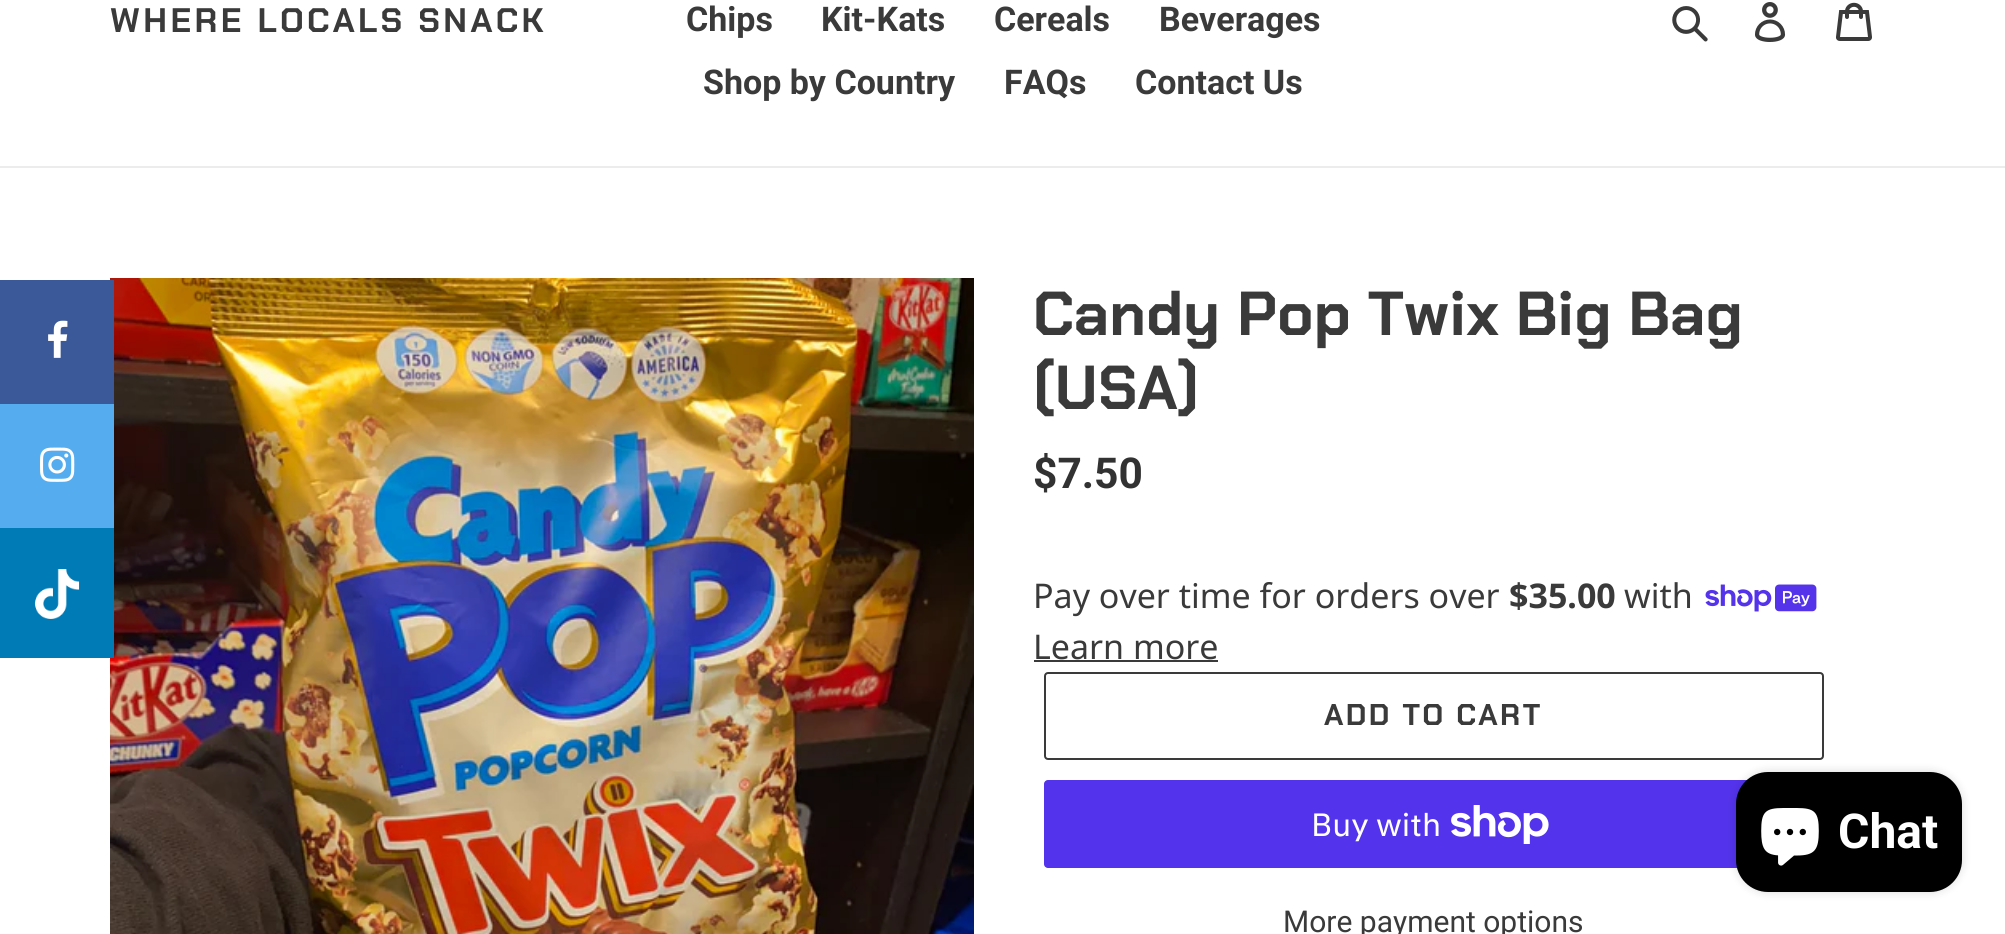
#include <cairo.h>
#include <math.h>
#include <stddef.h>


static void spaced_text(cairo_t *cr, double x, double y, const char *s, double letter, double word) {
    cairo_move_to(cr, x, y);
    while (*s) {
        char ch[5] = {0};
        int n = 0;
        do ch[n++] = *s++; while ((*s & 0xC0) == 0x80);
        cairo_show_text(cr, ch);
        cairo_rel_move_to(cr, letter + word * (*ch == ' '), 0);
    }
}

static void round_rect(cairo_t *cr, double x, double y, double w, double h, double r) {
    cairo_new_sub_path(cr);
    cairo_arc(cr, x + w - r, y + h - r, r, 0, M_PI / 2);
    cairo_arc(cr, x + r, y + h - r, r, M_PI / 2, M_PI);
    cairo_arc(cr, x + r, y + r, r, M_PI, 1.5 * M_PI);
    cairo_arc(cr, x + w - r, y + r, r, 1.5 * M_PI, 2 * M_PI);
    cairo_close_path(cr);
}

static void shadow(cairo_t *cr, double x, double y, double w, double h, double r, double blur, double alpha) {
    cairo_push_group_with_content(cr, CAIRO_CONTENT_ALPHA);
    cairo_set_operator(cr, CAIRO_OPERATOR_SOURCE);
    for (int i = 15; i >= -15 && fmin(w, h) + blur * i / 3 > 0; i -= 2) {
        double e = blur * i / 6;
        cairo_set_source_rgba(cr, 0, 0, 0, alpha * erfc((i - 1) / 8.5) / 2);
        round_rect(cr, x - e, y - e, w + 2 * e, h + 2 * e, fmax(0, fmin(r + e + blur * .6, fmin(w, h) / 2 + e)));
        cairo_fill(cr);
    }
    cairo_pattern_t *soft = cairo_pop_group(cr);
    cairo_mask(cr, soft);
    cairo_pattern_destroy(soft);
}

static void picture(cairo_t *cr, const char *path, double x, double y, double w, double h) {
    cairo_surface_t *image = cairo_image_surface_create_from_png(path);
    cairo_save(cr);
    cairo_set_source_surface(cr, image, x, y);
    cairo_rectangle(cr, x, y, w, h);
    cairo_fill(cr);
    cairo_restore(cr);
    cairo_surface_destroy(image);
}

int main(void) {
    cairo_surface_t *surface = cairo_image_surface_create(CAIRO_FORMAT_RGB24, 2005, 934);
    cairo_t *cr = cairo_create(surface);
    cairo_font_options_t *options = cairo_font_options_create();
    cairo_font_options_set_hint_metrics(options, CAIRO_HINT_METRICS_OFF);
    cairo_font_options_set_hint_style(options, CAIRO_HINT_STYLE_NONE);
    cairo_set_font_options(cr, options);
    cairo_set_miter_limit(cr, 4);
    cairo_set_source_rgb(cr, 1, 1, 1);
    cairo_paint(cr);
    cairo_set_source_rgb(cr, 0.922, 0.922, 0.922);
    cairo_rectangle(cr, 0, 166, 2005, 2);
    cairo_fill(cr);
    cairo_select_font_face(cr, "Chakra Petch", CAIRO_FONT_SLANT_NORMAL, CAIRO_FONT_WEIGHT_BOLD);
    cairo_set_font_size(cr, 34);
    cairo_set_source_rgb(cr, 0.227, 0.227, 0.227);
    spaced_text(cr, 110, 32, "WHERE LOCALS SNACK", 3.4, 0);
    cairo_select_font_face(cr, "Roboto", CAIRO_FONT_SLANT_NORMAL, CAIRO_FONT_WEIGHT_BOLD);
    cairo_move_to(cr, 686, 31);
    cairo_show_text(cr, "Chips");
    cairo_move_to(cr, 821, 31);
    cairo_show_text(cr, "Kit-Kats");
    cairo_move_to(cr, 994, 31);
    cairo_show_text(cr, "Cereals");
    cairo_move_to(cr, 1159, 31);
    cairo_show_text(cr, "Beverages");
    cairo_move_to(cr, 703, 94);
    cairo_show_text(cr, "Shop by Country");
    cairo_move_to(cr, 1004, 94);
    cairo_show_text(cr, "FAQs");
    cairo_move_to(cr, 1135, 94);
    cairo_show_text(cr, "Contact Us");
    picture(cr, "img1.png", 1672, 6, 36, 36);
    picture(cr, "img2.png", 1755, 2, 31, 40);
    picture(cr, "img3.png", 1836, 2, 36, 39);
    picture(cr, "img7.png", 110, 278, 864, 656);
    cairo_set_source_rgb(cr, 0.231, 0.349, 0.596);
    cairo_rectangle(cr, 0, 280, 114, 124);
    cairo_fill(cr);
    picture(cr, "img4.png", 48, 320, 20, 38);
    cairo_set_source_rgb(cr, 0.333, 0.675, 0.933);
    cairo_rectangle(cr, 0, 404, 114, 124);
    cairo_fill(cr);
    picture(cr, "img5.png", 40, 447, 35, 35);
    cairo_set_source_rgb(cr, 0, 0.482, 0.71);
    cairo_rectangle(cr, 0, 528, 114, 130);
    cairo_fill(cr);
    picture(cr, "img6.png", 34, 569, 46, 50);
    cairo_select_font_face(cr, "Chakra Petch", CAIRO_FONT_SLANT_NORMAL, CAIRO_FONT_WEIGHT_BOLD);
    cairo_set_font_size(cr, 62);
    cairo_set_source_rgb(cr, 0.227, 0.227, 0.227);
    cairo_move_to(cr, 1033, 335);
    cairo_show_text(cr, "Candy Pop Twix Big Bag");
    cairo_move_to(cr, 1033, 409);
    cairo_show_text(cr, "(USA)");
    cairo_select_font_face(cr, "Roboto", CAIRO_FONT_SLANT_NORMAL, CAIRO_FONT_WEIGHT_BOLD);
    cairo_set_font_size(cr, 42.5);
    cairo_set_source_rgb(cr, 0.2, 0.196, 0.196);
    cairo_move_to(cr, 1033, 488);
    cairo_show_text(cr, "$7.50");
    cairo_select_font_face(cr, "Noto Sans", CAIRO_FONT_SLANT_NORMAL, CAIRO_FONT_WEIGHT_NORMAL);
    cairo_set_font_size(cr, 34);
    cairo_set_source_rgb(cr, 0.227, 0.227, 0.227);
    cairo_move_to(cr, 1033, 608);
    cairo_show_text(cr, "Pay over time for orders over");
    cairo_select_font_face(cr, "Noto Sans", CAIRO_FONT_SLANT_NORMAL, CAIRO_FONT_WEIGHT_BOLD);
    cairo_move_to(cr, 1509, 608);
    cairo_show_text(cr, "$35.00");
    cairo_select_font_face(cr, "Noto Sans", CAIRO_FONT_SLANT_NORMAL, CAIRO_FONT_WEIGHT_NORMAL);
    cairo_move_to(cr, 1624, 608);
    cairo_show_text(cr, "with");
    picture(cr, "img8.png", 1705, 584, 112, 28);
    cairo_move_to(cr, 1033, 659);
    cairo_show_text(cr, "Learn more");
    cairo_rectangle(cr, 1034, 660, 184, 2);
    cairo_fill(cr);
    round_rect(cr, 1045, 673, 778, 86, 3);
    cairo_stroke(cr);
    cairo_select_font_face(cr, "Chakra Petch", CAIRO_FONT_SLANT_NORMAL, CAIRO_FONT_WEIGHT_BOLD);
    cairo_set_font_size(cr, 30);
    spaced_text(cr, 1324, 725, "ADD TO CART", 2.4, 0);
    cairo_set_source_rgb(cr, 0.329, 0.2, 0.922);
    round_rect(cr, 1044, 780, 780, 88, 4);
    cairo_fill(cr);
    cairo_select_font_face(cr, "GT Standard", CAIRO_FONT_SLANT_NORMAL, CAIRO_FONT_WEIGHT_NORMAL);
    cairo_set_font_size(cr, 32);
    cairo_set_source_rgb(cr, 1, 1, 1);
    cairo_move_to(cr, 1311, 836);
    cairo_show_text(cr, "Buy with");
    picture(cr, "img9.png", 1451, 805, 98, 39);
    cairo_select_font_face(cr, "Roboto", CAIRO_FONT_SLANT_NORMAL, CAIRO_FONT_WEIGHT_NORMAL);
    cairo_set_font_size(cr, 30);
    cairo_set_source_rgb(cr, 0.227, 0.227, 0.227);
    cairo_move_to(cr, 1283, 932);
    cairo_show_text(cr, "More payment options");
    cairo_set_source_rgb(cr, 0, 0, 0);
    shadow(cr, 1736, 772, 226, 120, 32, 5, 0.15);
    cairo_set_source_rgb(cr, 0, 0, 0);
    round_rect(cr, 1736, 772, 226, 120, 32);
    cairo_fill(cr);
    picture(cr, "img10.png", 1761, 808, 58, 58);
    cairo_select_font_face(cr, "Roboto", CAIRO_FONT_SLANT_NORMAL, CAIRO_FONT_WEIGHT_BOLD);
    cairo_set_font_size(cr, 48);
    cairo_set_source_rgb(cr, 1, 1, 1);
    cairo_move_to(cr, 1838, 848);
    cairo_show_text(cr, "Chat");
    cairo_surface_write_to_png(surface, "page.png");
    cairo_font_options_destroy(options);
    cairo_destroy(cr);
    cairo_surface_destroy(surface);
    return 0;
}
